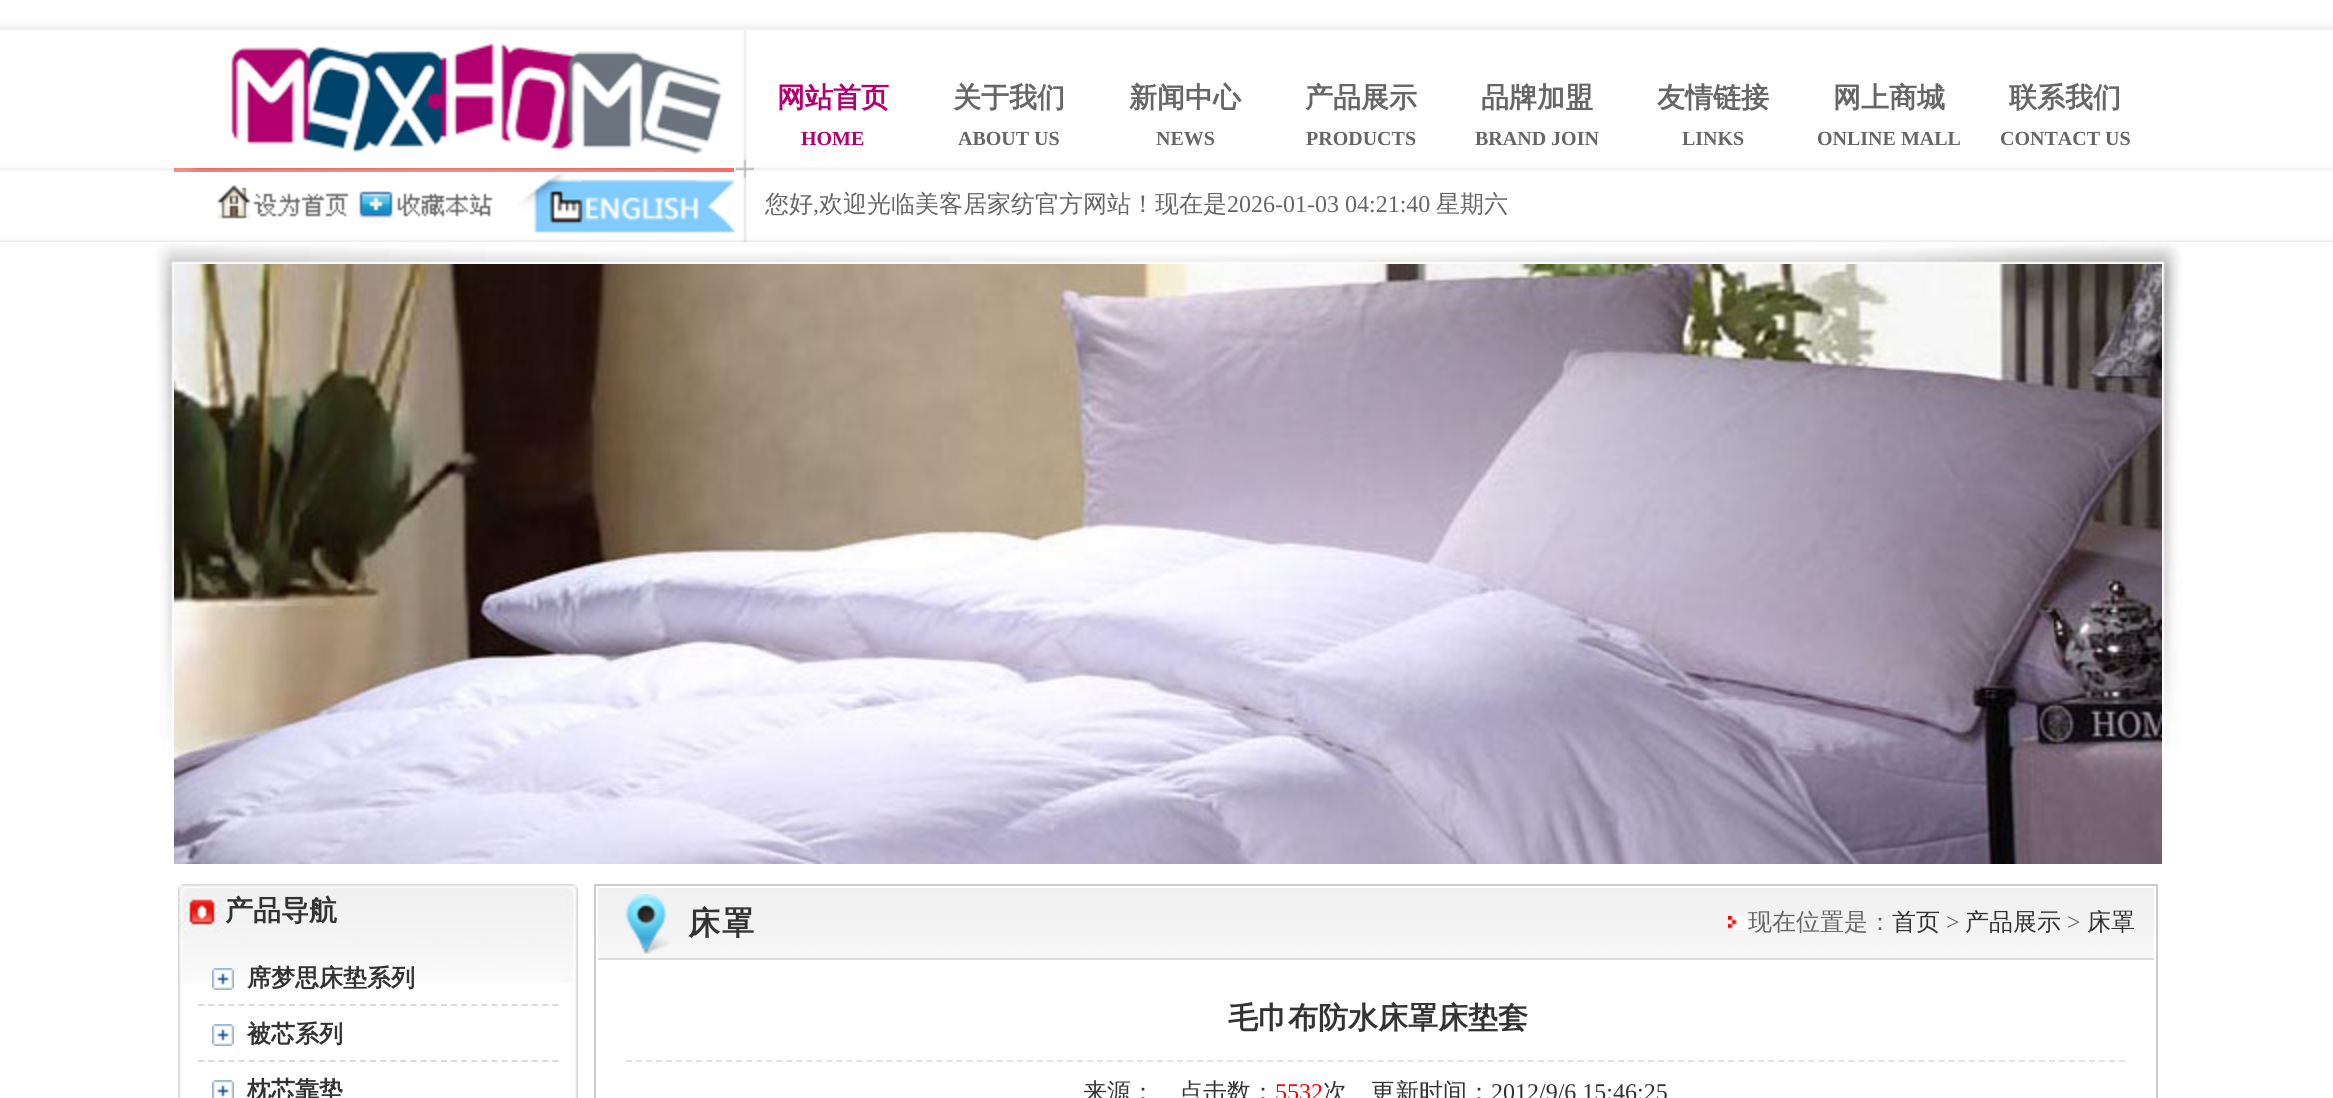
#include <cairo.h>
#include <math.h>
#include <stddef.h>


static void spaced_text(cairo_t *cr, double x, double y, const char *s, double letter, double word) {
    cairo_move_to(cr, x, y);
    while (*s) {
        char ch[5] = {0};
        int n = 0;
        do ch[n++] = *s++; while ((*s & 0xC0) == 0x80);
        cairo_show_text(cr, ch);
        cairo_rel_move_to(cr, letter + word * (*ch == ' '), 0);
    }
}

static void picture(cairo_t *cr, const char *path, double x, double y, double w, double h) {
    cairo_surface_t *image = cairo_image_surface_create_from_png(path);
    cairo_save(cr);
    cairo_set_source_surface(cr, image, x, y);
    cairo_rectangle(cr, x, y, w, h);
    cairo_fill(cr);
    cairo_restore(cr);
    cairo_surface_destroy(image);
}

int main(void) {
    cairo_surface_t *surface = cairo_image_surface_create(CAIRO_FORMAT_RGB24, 2333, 1098);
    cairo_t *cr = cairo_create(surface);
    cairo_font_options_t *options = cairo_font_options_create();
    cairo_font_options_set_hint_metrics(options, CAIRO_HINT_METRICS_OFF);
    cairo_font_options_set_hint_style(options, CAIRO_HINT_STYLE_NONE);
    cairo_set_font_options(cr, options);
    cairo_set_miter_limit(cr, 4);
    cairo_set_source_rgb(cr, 1, 1, 1);
    cairo_paint(cr);
    picture(cr, "img1.png", 0, 23, 2333, 219);
    picture(cr, "img2.png", 231, 43, 492, 112);
    picture(cr, "img3.png", 174, 168, 560, 4);
    picture(cr, "img4.png", 217, 172, 517, 61);
    picture(cr, "img5.png", 736, 30, 18, 212);
    cairo_select_font_face(cr, "WenQuanYi Zen Hei", CAIRO_FONT_SLANT_NORMAL, CAIRO_FONT_WEIGHT_BOLD);
    cairo_set_font_size(cr, 28);
    cairo_set_source_rgb(cr, 0.694, 0, 0.435);
    cairo_move_to(cr, 777, 107);
    cairo_show_text(cr, "网站首页");
    cairo_select_font_face(cr, "Liberation Serif", CAIRO_FONT_SLANT_NORMAL, CAIRO_FONT_WEIGHT_BOLD);
    cairo_set_font_size(cr, 20);
    cairo_move_to(cr, 801, 145);
    cairo_show_text(cr, "HOME");
    cairo_select_font_face(cr, "WenQuanYi Zen Hei", CAIRO_FONT_SLANT_NORMAL, CAIRO_FONT_WEIGHT_BOLD);
    cairo_set_font_size(cr, 28);
    cairo_set_source_rgb(cr, 0.4, 0.4, 0.4);
    cairo_move_to(cr, 953, 107);
    cairo_show_text(cr, "关于我们");
    cairo_select_font_face(cr, "Liberation Serif", CAIRO_FONT_SLANT_NORMAL, CAIRO_FONT_WEIGHT_BOLD);
    cairo_set_font_size(cr, 20);
    cairo_move_to(cr, 958, 145);
    cairo_show_text(cr, "ABOUT US");
    cairo_select_font_face(cr, "WenQuanYi Zen Hei", CAIRO_FONT_SLANT_NORMAL, CAIRO_FONT_WEIGHT_BOLD);
    cairo_set_font_size(cr, 28);
    cairo_move_to(cr, 1129, 107);
    cairo_show_text(cr, "新闻中心");
    cairo_select_font_face(cr, "Liberation Serif", CAIRO_FONT_SLANT_NORMAL, CAIRO_FONT_WEIGHT_BOLD);
    cairo_set_font_size(cr, 20);
    cairo_move_to(cr, 1156, 145);
    cairo_show_text(cr, "NEWS");
    cairo_select_font_face(cr, "WenQuanYi Zen Hei", CAIRO_FONT_SLANT_NORMAL, CAIRO_FONT_WEIGHT_BOLD);
    cairo_set_font_size(cr, 28);
    cairo_move_to(cr, 1305, 107);
    cairo_show_text(cr, "产品展示");
    cairo_select_font_face(cr, "Liberation Serif", CAIRO_FONT_SLANT_NORMAL, CAIRO_FONT_WEIGHT_BOLD);
    cairo_set_font_size(cr, 20);
    cairo_move_to(cr, 1306, 145);
    cairo_show_text(cr, "PRODUCTS");
    cairo_select_font_face(cr, "WenQuanYi Zen Hei", CAIRO_FONT_SLANT_NORMAL, CAIRO_FONT_WEIGHT_BOLD);
    cairo_set_font_size(cr, 28);
    cairo_move_to(cr, 1481, 107);
    cairo_show_text(cr, "品牌加盟");
    cairo_select_font_face(cr, "Liberation Serif", CAIRO_FONT_SLANT_NORMAL, CAIRO_FONT_WEIGHT_BOLD);
    cairo_set_font_size(cr, 20);
    cairo_move_to(cr, 1475, 145);
    cairo_show_text(cr, "BRAND JOIN");
    cairo_select_font_face(cr, "WenQuanYi Zen Hei", CAIRO_FONT_SLANT_NORMAL, CAIRO_FONT_WEIGHT_BOLD);
    cairo_set_font_size(cr, 28);
    cairo_move_to(cr, 1657, 107);
    cairo_show_text(cr, "友情链接");
    cairo_select_font_face(cr, "Liberation Serif", CAIRO_FONT_SLANT_NORMAL, CAIRO_FONT_WEIGHT_BOLD);
    cairo_set_font_size(cr, 20);
    cairo_move_to(cr, 1682, 145);
    cairo_show_text(cr, "LINKS");
    cairo_select_font_face(cr, "WenQuanYi Zen Hei", CAIRO_FONT_SLANT_NORMAL, CAIRO_FONT_WEIGHT_BOLD);
    cairo_set_font_size(cr, 28);
    cairo_move_to(cr, 1833, 107);
    cairo_show_text(cr, "网上商城");
    cairo_select_font_face(cr, "Liberation Serif", CAIRO_FONT_SLANT_NORMAL, CAIRO_FONT_WEIGHT_BOLD);
    cairo_set_font_size(cr, 20);
    cairo_move_to(cr, 1817, 145);
    cairo_show_text(cr, "ONLINE MALL");
    cairo_select_font_face(cr, "WenQuanYi Zen Hei", CAIRO_FONT_SLANT_NORMAL, CAIRO_FONT_WEIGHT_BOLD);
    cairo_set_font_size(cr, 28);
    cairo_move_to(cr, 2009, 107);
    cairo_show_text(cr, "联系我们");
    cairo_select_font_face(cr, "Liberation Serif", CAIRO_FONT_SLANT_NORMAL, CAIRO_FONT_WEIGHT_BOLD);
    cairo_set_font_size(cr, 20);
    cairo_move_to(cr, 2000, 145);
    cairo_show_text(cr, "CONTACT US");
    cairo_select_font_face(cr, "WenQuanYi Zen Hei Medium", CAIRO_FONT_SLANT_NORMAL, CAIRO_FONT_WEIGHT_NORMAL);
    cairo_set_font_size(cr, 24);
    cairo_move_to(cr, 765, 212);
    cairo_show_text(cr, "您好");
    cairo_select_font_face(cr, "Liberation Serif", CAIRO_FONT_SLANT_NORMAL, CAIRO_FONT_WEIGHT_NORMAL);
    cairo_move_to(cr, 813, 212);
    cairo_show_text(cr, ",");
    cairo_select_font_face(cr, "WenQuanYi Zen Hei Medium", CAIRO_FONT_SLANT_NORMAL, CAIRO_FONT_WEIGHT_NORMAL);
    cairo_move_to(cr, 819, 212);
    cairo_show_text(cr, "欢迎光临美客居家纺官方网站！现在是");
    cairo_select_font_face(cr, "Liberation Serif", CAIRO_FONT_SLANT_NORMAL, CAIRO_FONT_WEIGHT_NORMAL);
    cairo_move_to(cr, 1227, 212);
    cairo_show_text(cr, "2026-01-03 04:21:40");
    cairo_select_font_face(cr, "WenQuanYi Zen Hei Medium", CAIRO_FONT_SLANT_NORMAL, CAIRO_FONT_WEIGHT_NORMAL);
    cairo_move_to(cr, 1436, 212);
    cairo_show_text(cr, "星期六");
    picture(cr, "img6.png", 156, 242, 2026, 511);
    picture(cr, "img7.png", 174, 264, 1988, 600);
    picture(cr, "img8.png", 178, 884, 400, 56);
    cairo_select_font_face(cr, "WenQuanYi Zen Hei", CAIRO_FONT_SLANT_NORMAL, CAIRO_FONT_WEIGHT_BOLD);
    cairo_set_font_size(cr, 28);
    cairo_set_source_rgb(cr, 0.2, 0.2, 0.2);
    cairo_move_to(cr, 225, 920);
    cairo_show_text(cr, "产品导航");
    picture(cr, "img9.png", 178, 940, 400, 158);
    picture(cr, "img10.png", 182, 940, 392, 43);
    cairo_new_path(cr);
    cairo_move_to(cr, 198, 1005);
    cairo_line_to(cr, 558, 1005);
    cairo_set_source_rgb(cr, 0.859, 0.859, 0.859);
    cairo_set_dash(cr, (double[]){6, 4.12}, 2, 0);
    cairo_stroke(cr);
    picture(cr, "img11.png", 212, 968, 22, 22);
    cairo_set_font_size(cr, 24);
    cairo_set_source_rgb(cr, 0.2, 0.2, 0.2);
    cairo_move_to(cr, 247, 986);
    cairo_show_text(cr, "席梦思床垫系列");
    cairo_new_path(cr);
    cairo_move_to(cr, 198, 1061);
    cairo_line_to(cr, 558, 1061);
    cairo_set_source_rgb(cr, 0.859, 0.859, 0.859);
    cairo_stroke(cr);
    picture(cr, "img12.png", 212, 1024, 22, 22);
    cairo_set_source_rgb(cr, 0.2, 0.2, 0.2);
    cairo_move_to(cr, 247, 1042);
    cairo_show_text(cr, "被芯系列");
    picture(cr, "img13.png", 212, 1080, 22, 18);
    cairo_move_to(cr, 247, 1098);
    cairo_show_text(cr, "枕芯靠垫");
    cairo_set_source_rgb(cr, 0.8, 0.8, 0.8);
    cairo_rectangle(cr, 594, 884, 1564, 214);
    cairo_fill(cr);
    cairo_set_source_rgb(cr, 1, 1, 1);
    cairo_rectangle(cr, 596, 886, 1560, 212);
    cairo_fill(cr);
    cairo_set_source_rgb(cr, 0.859, 0.859, 0.859);
    cairo_rectangle(cr, 598, 958, 1556, 2);
    cairo_fill(cr);
    picture(cr, "img14.png", 598, 888, 1556, 70);
    picture(cr, "img15.png", 625, 894, 45, 60);
    cairo_set_font_size(cr, 32);
    cairo_set_source_rgb(cr, 0.2, 0.2, 0.2);
    spaced_text(cr, 688, 934, "床罩", 2, 0);
    picture(cr, "img16.png", 1728, 916, 20, 14);
    cairo_select_font_face(cr, "WenQuanYi Zen Hei Medium", CAIRO_FONT_SLANT_NORMAL, CAIRO_FONT_WEIGHT_NORMAL);
    cairo_set_font_size(cr, 24);
    cairo_set_source_rgb(cr, 0.4, 0.4, 0.4);
    cairo_move_to(cr, 1748, 930);
    cairo_show_text(cr, "现在位置是：");
    cairo_set_source_rgb(cr, 0.2, 0.2, 0.2);
    cairo_move_to(cr, 1892, 930);
    cairo_show_text(cr, "首页");
    cairo_select_font_face(cr, "Liberation Serif", CAIRO_FONT_SLANT_NORMAL, CAIRO_FONT_WEIGHT_NORMAL);
    cairo_set_source_rgb(cr, 0.4, 0.4, 0.4);
    cairo_move_to(cr, 1946, 930);
    cairo_show_text(cr, ">");
    cairo_select_font_face(cr, "WenQuanYi Zen Hei Medium", CAIRO_FONT_SLANT_NORMAL, CAIRO_FONT_WEIGHT_NORMAL);
    cairo_set_source_rgb(cr, 0.2, 0.2, 0.2);
    cairo_move_to(cr, 1965, 930);
    cairo_show_text(cr, "产品展示");
    cairo_select_font_face(cr, "Liberation Serif", CAIRO_FONT_SLANT_NORMAL, CAIRO_FONT_WEIGHT_NORMAL);
    cairo_set_source_rgb(cr, 0.4, 0.4, 0.4);
    cairo_move_to(cr, 2067, 930);
    cairo_show_text(cr, ">");
    cairo_select_font_face(cr, "WenQuanYi Zen Hei Medium", CAIRO_FONT_SLANT_NORMAL, CAIRO_FONT_WEIGHT_NORMAL);
    cairo_set_source_rgb(cr, 0.2, 0.2, 0.2);
    cairo_move_to(cr, 2087, 930);
    cairo_show_text(cr, "床罩");
    cairo_select_font_face(cr, "WenQuanYi Zen Hei", CAIRO_FONT_SLANT_NORMAL, CAIRO_FONT_WEIGHT_BOLD);
    cairo_set_font_size(cr, 30);
    cairo_move_to(cr, 1228, 1028);
    cairo_show_text(cr, "毛巾布防水床罩床垫套");
    cairo_new_path(cr);
    cairo_move_to(cr, 626, 1061);
    cairo_line_to(cr, 2126, 1061);
    cairo_set_source_rgb(cr, 0.882, 0.894, 0.902);
    cairo_set_dash(cr, (double[]){6, 4.02}, 2, 0);
    cairo_stroke(cr);
    cairo_select_font_face(cr, "WenQuanYi Zen Hei Medium", CAIRO_FONT_SLANT_NORMAL, CAIRO_FONT_WEIGHT_NORMAL);
    cairo_set_font_size(cr, 24);
    cairo_set_source_rgb(cr, 0.2, 0.2, 0.2);
    cairo_move_to(cr, 1083, 1100);
    cairo_show_text(cr, "来源：　点击数：");
    cairo_select_font_face(cr, "Liberation Serif", CAIRO_FONT_SLANT_NORMAL, CAIRO_FONT_WEIGHT_NORMAL);
    cairo_set_source_rgb(cr, 1, 0, 0);
    cairo_move_to(cr, 1275, 1100);
    cairo_show_text(cr, "5532");
    cairo_select_font_face(cr, "WenQuanYi Zen Hei Medium", CAIRO_FONT_SLANT_NORMAL, CAIRO_FONT_WEIGHT_NORMAL);
    cairo_set_source_rgb(cr, 0.2, 0.2, 0.2);
    cairo_move_to(cr, 1323, 1100);
    cairo_show_text(cr, "次　更新时间：");
    cairo_select_font_face(cr, "Liberation Serif", CAIRO_FONT_SLANT_NORMAL, CAIRO_FONT_WEIGHT_NORMAL);
    cairo_move_to(cr, 1491, 1100);
    cairo_show_text(cr, "2012/9/6 15:46:25");
    cairo_surface_write_to_png(surface, "page.png");
    cairo_font_options_destroy(options);
    cairo_destroy(cr);
    cairo_surface_destroy(surface);
    return 0;
}
